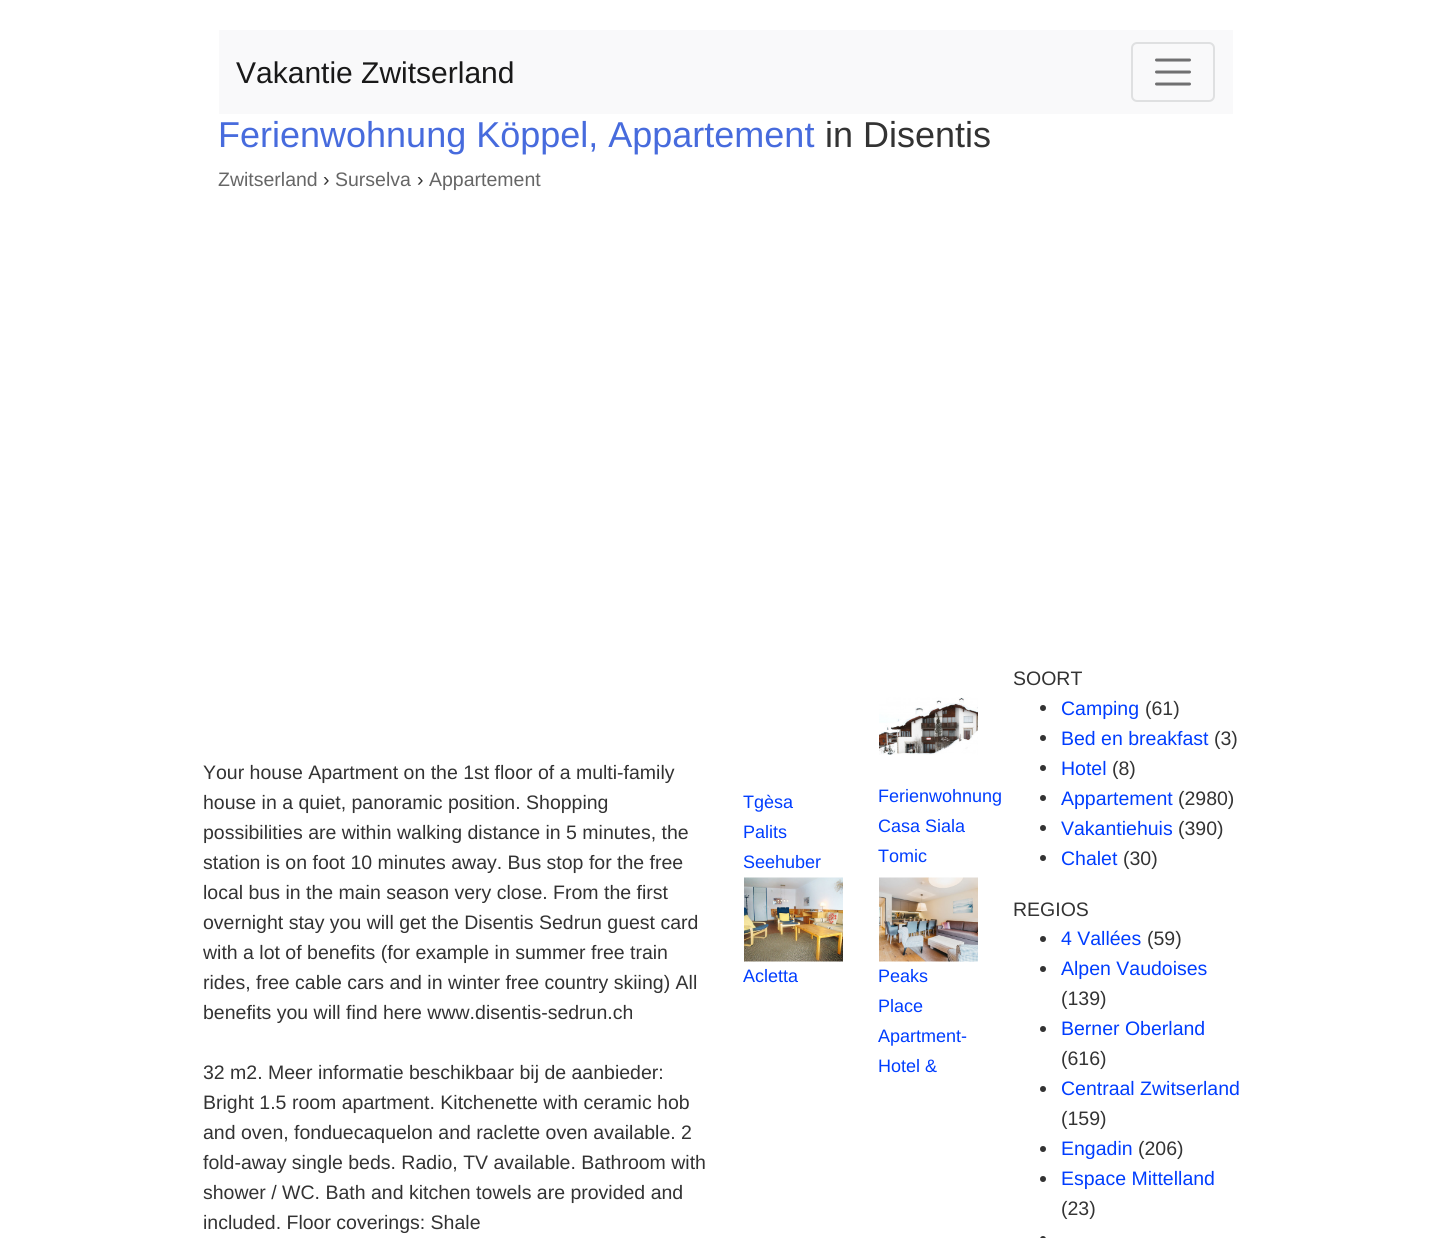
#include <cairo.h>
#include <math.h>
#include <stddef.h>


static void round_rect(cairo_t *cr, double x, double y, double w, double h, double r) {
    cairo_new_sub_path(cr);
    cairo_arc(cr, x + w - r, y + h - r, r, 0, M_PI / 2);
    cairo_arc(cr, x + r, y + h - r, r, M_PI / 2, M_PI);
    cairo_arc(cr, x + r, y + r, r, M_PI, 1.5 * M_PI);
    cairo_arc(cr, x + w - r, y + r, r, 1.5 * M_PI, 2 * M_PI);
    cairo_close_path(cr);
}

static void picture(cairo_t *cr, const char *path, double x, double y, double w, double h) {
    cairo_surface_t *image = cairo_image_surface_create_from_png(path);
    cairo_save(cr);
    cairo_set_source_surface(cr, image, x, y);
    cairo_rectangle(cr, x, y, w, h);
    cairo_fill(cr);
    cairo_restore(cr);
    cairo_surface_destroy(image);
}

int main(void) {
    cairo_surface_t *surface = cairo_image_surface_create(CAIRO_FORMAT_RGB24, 1450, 1238);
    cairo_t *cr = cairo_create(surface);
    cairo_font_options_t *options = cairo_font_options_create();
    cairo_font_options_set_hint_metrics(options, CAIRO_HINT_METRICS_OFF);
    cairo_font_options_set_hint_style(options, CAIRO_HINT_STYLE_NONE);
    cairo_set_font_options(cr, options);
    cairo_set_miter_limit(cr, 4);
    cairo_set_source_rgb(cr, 1, 1, 1);
    cairo_paint(cr);
    cairo_set_source_rgb(cr, 0.973, 0.976, 0.98);
    cairo_rectangle(cr, 219, 30, 1014, 84);
    cairo_fill(cr);
    cairo_select_font_face(cr, "Liberation Sans", CAIRO_FONT_SLANT_NORMAL, CAIRO_FONT_WEIGHT_NORMAL);
    cairo_set_font_size(cr, 30);
    cairo_set_source_rgb(cr, 0.098, 0.098, 0.098);
    cairo_move_to(cr, 236, 83);
    cairo_show_text(cr, "Vakantie Zwitserland");
    round_rect(cr, 1132, 43, 82, 58, 5);
    cairo_set_source_rgb(cr, 0.875, 0.878, 0.882);
    cairo_stroke(cr);
    cairo_new_path(cr);
    cairo_move_to(cr, 1156.5, 60);
    cairo_line_to(cr, 1189.5, 60);
    cairo_move_to(cr, 1156.5, 72);
    cairo_line_to(cr, 1189.5, 72);
    cairo_move_to(cr, 1156.5, 84);
    cairo_line_to(cr, 1189.5, 84);
    cairo_set_source_rgb(cr, 0.439, 0.439, 0.443);
    cairo_set_line_width(cr, 3);
    cairo_set_line_cap(cr, CAIRO_LINE_CAP_ROUND);
    cairo_stroke(cr);
    cairo_set_font_size(cr, 36);
    cairo_set_source_rgb(cr, 0.278, 0.42, 0.867);
    cairo_move_to(cr, 218, 147);
    cairo_show_text(cr, "Ferienwohnung Köppel, Appartement");
    cairo_set_source_rgb(cr, 0.2, 0.2, 0.2);
    cairo_move_to(cr, 825, 147);
    cairo_show_text(cr, "in Disentis");
    cairo_set_font_size(cr, 19.5);
    cairo_set_source_rgb(cr, 0.4, 0.4, 0.4);
    cairo_move_to(cr, 218, 186);
    cairo_show_text(cr, "Zwitserland");
    cairo_set_source_rgb(cr, 0.2, 0.2, 0.2);
    cairo_move_to(cr, 323, 186);
    cairo_show_text(cr, "›");
    cairo_set_source_rgb(cr, 0.4, 0.4, 0.4);
    cairo_move_to(cr, 335, 186);
    cairo_show_text(cr, "Surselva");
    cairo_set_source_rgb(cr, 0.2, 0.2, 0.2);
    cairo_move_to(cr, 417, 186);
    cairo_show_text(cr, "›");
    cairo_set_source_rgb(cr, 0.4, 0.4, 0.4);
    cairo_move_to(cr, 429, 186);
    cairo_show_text(cr, "Appartement");
    cairo_set_source_rgb(cr, 0.2, 0.2, 0.2);
    cairo_move_to(cr, 203, 779);
    cairo_show_text(cr, "Your house Apartment on the 1st floor of a multi-family");
    cairo_move_to(cr, 203, 809);
    cairo_show_text(cr, "house in a quiet, panoramic position. Shopping");
    cairo_move_to(cr, 203, 839);
    cairo_show_text(cr, "possibilities are within walking distance in 5 minutes, the");
    cairo_move_to(cr, 203, 869);
    cairo_show_text(cr, "station is on foot 10 minutes away. Bus stop for the free");
    cairo_move_to(cr, 203, 899);
    cairo_show_text(cr, "local bus in the main season very close. From the first");
    cairo_move_to(cr, 203, 929);
    cairo_show_text(cr, "overnight stay you will get the Disentis Sedrun guest card");
    cairo_move_to(cr, 203, 959);
    cairo_show_text(cr, "with a lot of benefits (for example in summer free train");
    cairo_move_to(cr, 203, 989);
    cairo_show_text(cr, "rides, free cable cars and in winter free country skiing) All");
    cairo_move_to(cr, 203, 1019);
    cairo_show_text(cr, "benefits you will find here www.disentis-sedrun.ch");
    cairo_move_to(cr, 203, 1079);
    cairo_show_text(cr, "32 m2. Meer informatie beschikbaar bij de aanbieder:");
    cairo_move_to(cr, 203, 1109);
    cairo_show_text(cr, "Bright 1.5 room apartment. Kitchenette with ceramic hob");
    cairo_move_to(cr, 203, 1139);
    cairo_show_text(cr, "and oven, fonduecaquelon and raclette oven available. 2");
    cairo_move_to(cr, 203, 1169);
    cairo_show_text(cr, "fold-away single beds. Radio, TV available. Bathroom with");
    cairo_move_to(cr, 203, 1199);
    cairo_show_text(cr, "shower / WC. Bath and kitchen towels are provided and");
    cairo_move_to(cr, 203, 1229);
    cairo_show_text(cr, "included. Floor coverings: Shale");
    cairo_set_font_size(cr, 18);
    cairo_set_source_rgb(cr, 0, 0.239, 1);
    cairo_move_to(cr, 743, 808);
    cairo_show_text(cr, "Tgèsa");
    cairo_move_to(cr, 743, 838);
    cairo_show_text(cr, "Palits");
    cairo_move_to(cr, 743, 868);
    cairo_show_text(cr, "Seehuber");
    picture(cr, "img1.png", 879, 697, 99, 58);
    cairo_move_to(cr, 878, 802);
    cairo_show_text(cr, "Ferienwohnung");
    cairo_move_to(cr, 878, 832);
    cairo_show_text(cr, "Casa Siala");
    cairo_move_to(cr, 878, 862);
    cairo_show_text(cr, "Tomic");
    picture(cr, "img2.png", 744, 877, 99, 85);
    cairo_move_to(cr, 743, 982);
    cairo_show_text(cr, "Acletta");
    picture(cr, "img3.png", 879, 877, 99, 85);
    cairo_move_to(cr, 878, 982);
    cairo_show_text(cr, "Peaks");
    cairo_move_to(cr, 878, 1012);
    cairo_show_text(cr, "Place");
    cairo_move_to(cr, 878, 1042);
    cairo_show_text(cr, "Apartment-");
    cairo_move_to(cr, 878, 1072);
    cairo_show_text(cr, "Hotel &");
    cairo_set_font_size(cr, 19.5);
    cairo_set_source_rgb(cr, 0.2, 0.2, 0.2);
    cairo_move_to(cr, 1013, 685);
    cairo_show_text(cr, "SOORT");
    cairo_new_path(cr);
    cairo_arc(cr, 1043, 708, 3, 0, 2 * M_PI);
    cairo_fill(cr);
    cairo_set_source_rgb(cr, 0, 0.239, 1);
    cairo_move_to(cr, 1061, 715);
    cairo_show_text(cr, "Camping");
    cairo_set_source_rgb(cr, 0.2, 0.2, 0.2);
    cairo_move_to(cr, 1145, 715);
    cairo_show_text(cr, "(61)");
    cairo_new_path(cr);
    cairo_arc(cr, 1043, 738, 3, 0, 2 * M_PI);
    cairo_fill(cr);
    cairo_set_source_rgb(cr, 0, 0.239, 1);
    cairo_move_to(cr, 1061, 745);
    cairo_show_text(cr, "Bed en breakfast");
    cairo_set_source_rgb(cr, 0.2, 0.2, 0.2);
    cairo_move_to(cr, 1214, 745);
    cairo_show_text(cr, "(3)");
    cairo_new_path(cr);
    cairo_arc(cr, 1043, 768, 3, 0, 2 * M_PI);
    cairo_fill(cr);
    cairo_set_source_rgb(cr, 0, 0.239, 1);
    cairo_move_to(cr, 1061, 775);
    cairo_show_text(cr, "Hotel");
    cairo_set_source_rgb(cr, 0.2, 0.2, 0.2);
    cairo_move_to(cr, 1112, 775);
    cairo_show_text(cr, "(8)");
    cairo_new_path(cr);
    cairo_arc(cr, 1043, 798, 3, 0, 2 * M_PI);
    cairo_fill(cr);
    cairo_set_source_rgb(cr, 0, 0.239, 1);
    cairo_move_to(cr, 1061, 805);
    cairo_show_text(cr, "Appartement");
    cairo_set_source_rgb(cr, 0.2, 0.2, 0.2);
    cairo_move_to(cr, 1178, 805);
    cairo_show_text(cr, "(2980)");
    cairo_new_path(cr);
    cairo_arc(cr, 1043, 828, 3, 0, 2 * M_PI);
    cairo_fill(cr);
    cairo_set_source_rgb(cr, 0, 0.239, 1);
    cairo_move_to(cr, 1061, 835);
    cairo_show_text(cr, "Vakantiehuis");
    cairo_set_source_rgb(cr, 0.2, 0.2, 0.2);
    cairo_move_to(cr, 1178, 835);
    cairo_show_text(cr, "(390)");
    cairo_new_path(cr);
    cairo_arc(cr, 1043, 858, 3, 0, 2 * M_PI);
    cairo_fill(cr);
    cairo_set_source_rgb(cr, 0, 0.239, 1);
    cairo_move_to(cr, 1061, 865);
    cairo_show_text(cr, "Chalet");
    cairo_set_source_rgb(cr, 0.2, 0.2, 0.2);
    cairo_move_to(cr, 1123, 865);
    cairo_show_text(cr, "(30)");
    cairo_move_to(cr, 1013, 916);
    cairo_show_text(cr, "REGIOS");
    cairo_new_path(cr);
    cairo_arc(cr, 1043, 939, 3, 0, 2 * M_PI);
    cairo_fill(cr);
    cairo_set_source_rgb(cr, 0, 0.239, 1);
    cairo_move_to(cr, 1061, 945);
    cairo_show_text(cr, "4 Vallées");
    cairo_set_source_rgb(cr, 0.2, 0.2, 0.2);
    cairo_move_to(cr, 1147, 945);
    cairo_show_text(cr, "(59)");
    cairo_new_path(cr);
    cairo_arc(cr, 1043, 969, 3, 0, 2 * M_PI);
    cairo_fill(cr);
    cairo_set_source_rgb(cr, 0, 0.239, 1);
    cairo_move_to(cr, 1061, 975);
    cairo_show_text(cr, "Alpen Vaudoises");
    cairo_set_source_rgb(cr, 0.2, 0.2, 0.2);
    cairo_move_to(cr, 1061, 1005);
    cairo_show_text(cr, "(139)");
    cairo_new_path(cr);
    cairo_arc(cr, 1043, 1029, 3, 0, 2 * M_PI);
    cairo_fill(cr);
    cairo_set_source_rgb(cr, 0, 0.239, 1);
    cairo_move_to(cr, 1061, 1035);
    cairo_show_text(cr, "Berner Oberland");
    cairo_set_source_rgb(cr, 0.2, 0.2, 0.2);
    cairo_move_to(cr, 1061, 1065);
    cairo_show_text(cr, "(616)");
    cairo_new_path(cr);
    cairo_arc(cr, 1043, 1089, 3, 0, 2 * M_PI);
    cairo_fill(cr);
    cairo_set_source_rgb(cr, 0, 0.239, 1);
    cairo_move_to(cr, 1061, 1095);
    cairo_show_text(cr, "Centraal Zwitserland");
    cairo_set_source_rgb(cr, 0.2, 0.2, 0.2);
    cairo_move_to(cr, 1061, 1125);
    cairo_show_text(cr, "(159)");
    cairo_new_path(cr);
    cairo_arc(cr, 1043, 1149, 3, 0, 2 * M_PI);
    cairo_fill(cr);
    cairo_set_source_rgb(cr, 0, 0.239, 1);
    cairo_move_to(cr, 1061, 1155);
    cairo_show_text(cr, "Engadin");
    cairo_set_source_rgb(cr, 0.2, 0.2, 0.2);
    cairo_move_to(cr, 1138, 1155);
    cairo_show_text(cr, "(206)");
    cairo_new_path(cr);
    cairo_arc(cr, 1043, 1179, 3, 0, 2 * M_PI);
    cairo_fill(cr);
    cairo_set_source_rgb(cr, 0, 0.239, 1);
    cairo_move_to(cr, 1061, 1185);
    cairo_show_text(cr, "Espace Mittelland");
    cairo_set_source_rgb(cr, 0.2, 0.2, 0.2);
    cairo_move_to(cr, 1061, 1215);
    cairo_show_text(cr, "(23)");
    round_rect(cr, 1040, 1236, 6, 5, 3);
    cairo_fill(cr);
    cairo_surface_write_to_png(surface, "page.png");
    cairo_font_options_destroy(options);
    cairo_destroy(cr);
    cairo_surface_destroy(surface);
    return 0;
}
